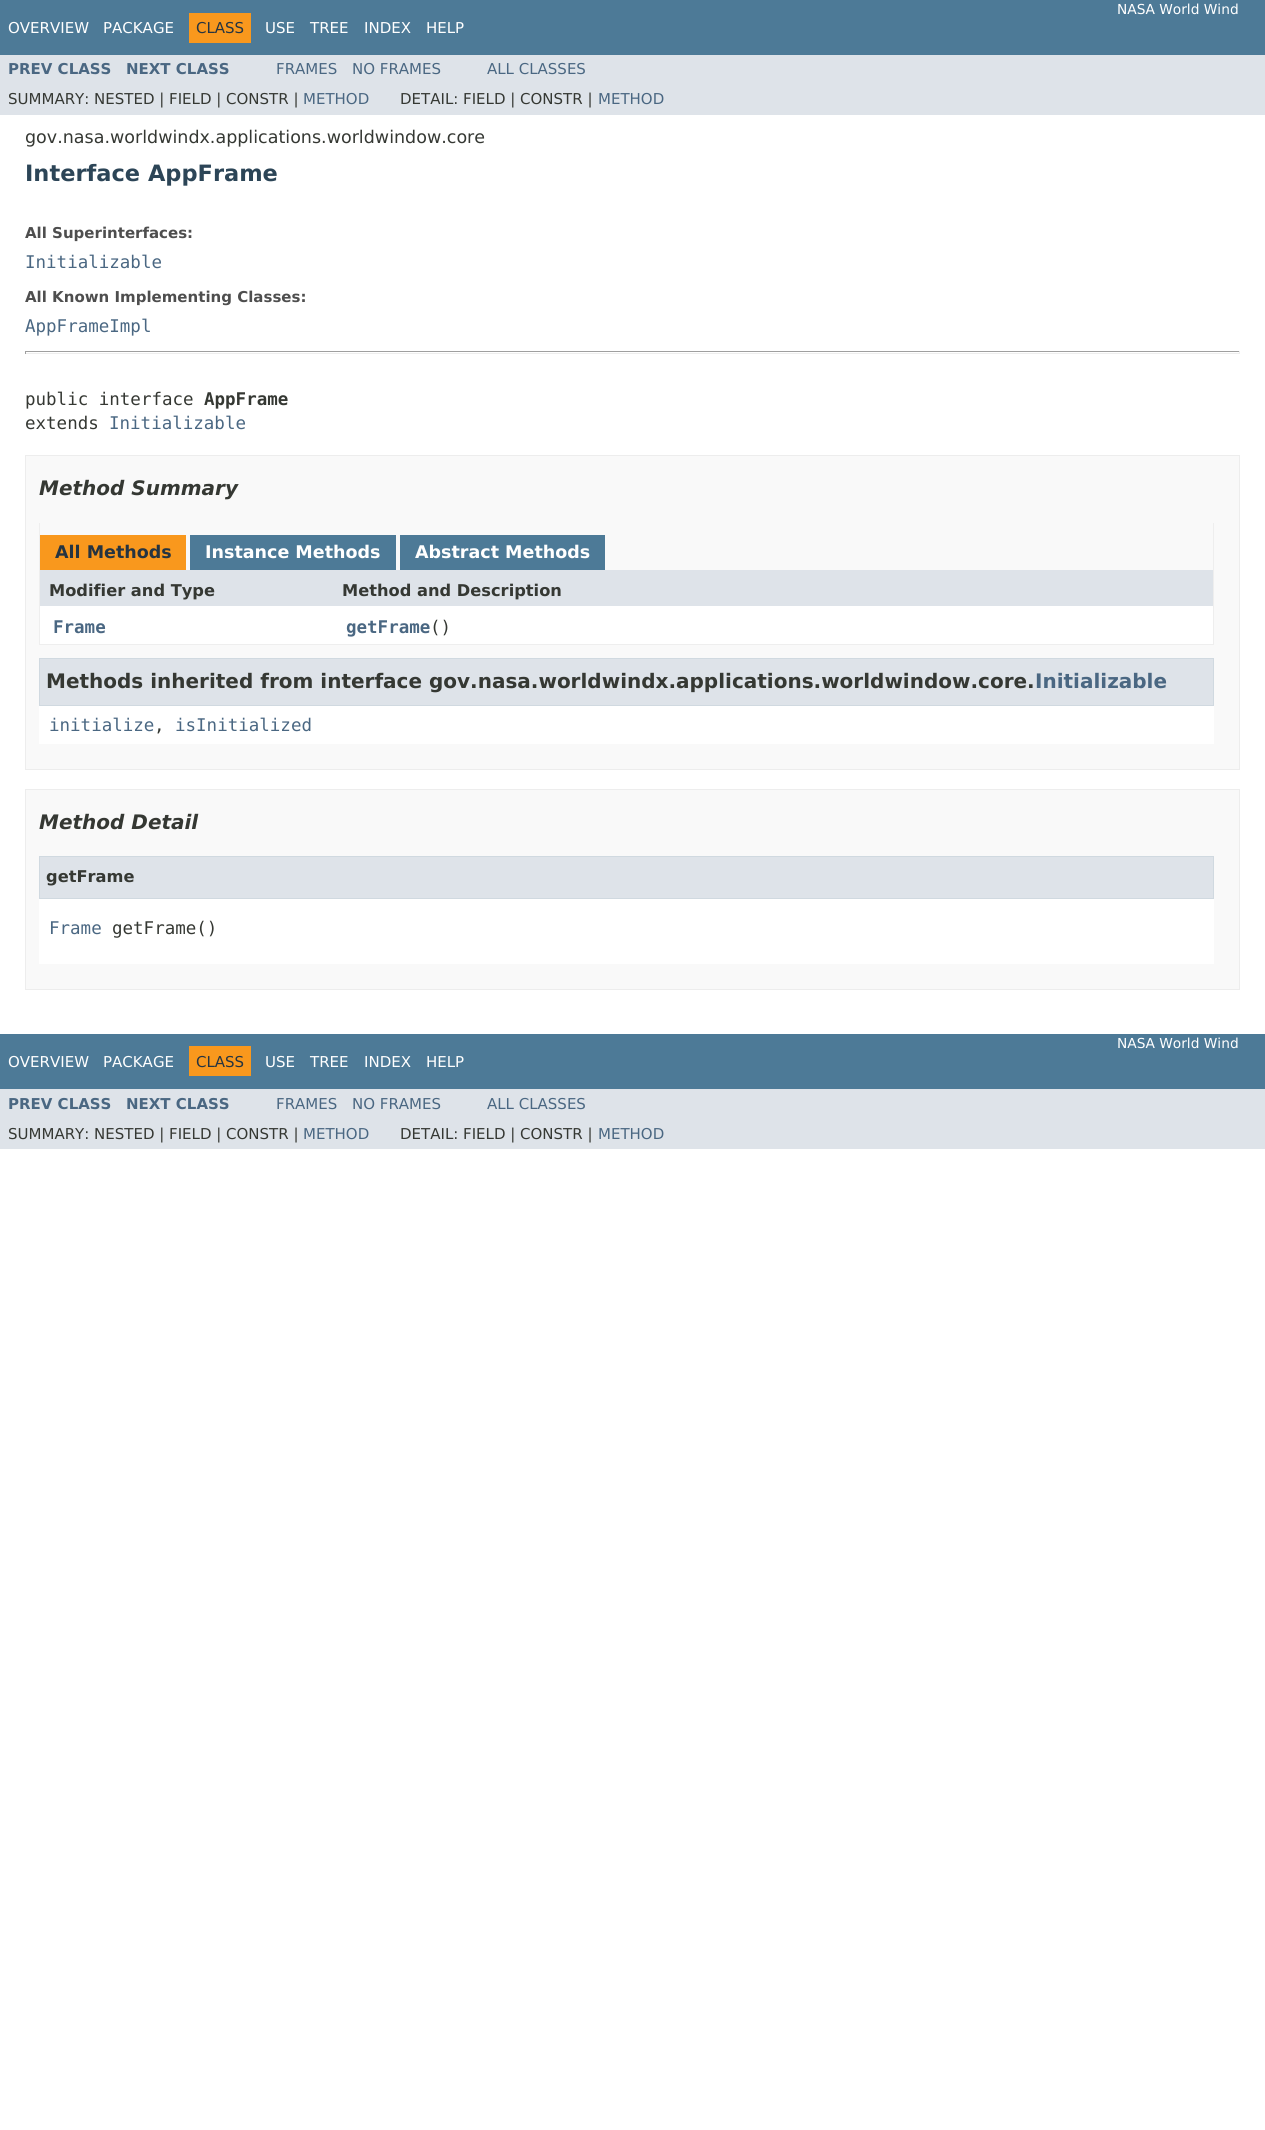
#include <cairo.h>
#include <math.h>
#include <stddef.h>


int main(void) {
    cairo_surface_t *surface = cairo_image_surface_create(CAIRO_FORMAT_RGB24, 1265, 2130);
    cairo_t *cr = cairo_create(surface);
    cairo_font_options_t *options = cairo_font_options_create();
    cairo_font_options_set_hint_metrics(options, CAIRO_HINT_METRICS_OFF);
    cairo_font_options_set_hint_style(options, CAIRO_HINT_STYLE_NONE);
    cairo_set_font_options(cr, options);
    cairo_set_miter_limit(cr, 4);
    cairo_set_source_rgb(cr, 1, 1, 1);
    cairo_paint(cr);
    cairo_set_source_rgb(cr, 0.302, 0.478, 0.592);
    cairo_rectangle(cr, 0, 0, 1265, 55);
    cairo_fill(cr);
    cairo_select_font_face(cr, "DejaVu Sans", CAIRO_FONT_SLANT_NORMAL, CAIRO_FONT_WEIGHT_NORMAL);
    cairo_set_font_size(cr, 13.75);
    cairo_set_source_rgb(cr, 1, 1, 1);
    cairo_move_to(cr, 1117, 14);
    cairo_show_text(cr, "NASA World Wind");
    cairo_set_font_size(cr, 15);
    cairo_move_to(cr, 8, 33);
    cairo_show_text(cr, "OVERVIEW");
    cairo_move_to(cr, 103, 33);
    cairo_show_text(cr, "PACKAGE");
    cairo_set_source_rgb(cr, 0.973, 0.596, 0.114);
    cairo_rectangle(cr, 189, 13, 62, 30);
    cairo_fill(cr);
    cairo_set_source_rgb(cr, 0.145, 0.204, 0.255);
    cairo_move_to(cr, 196, 33);
    cairo_show_text(cr, "CLASS");
    cairo_set_source_rgb(cr, 1, 1, 1);
    cairo_move_to(cr, 265, 33);
    cairo_show_text(cr, "USE");
    cairo_move_to(cr, 310, 33);
    cairo_show_text(cr, "TREE");
    cairo_move_to(cr, 364, 33);
    cairo_show_text(cr, "INDEX");
    cairo_move_to(cr, 426, 33);
    cairo_show_text(cr, "HELP");
    cairo_set_source_rgb(cr, 0.871, 0.89, 0.914);
    cairo_rectangle(cr, 0, 55, 1265, 60);
    cairo_fill(cr);
    cairo_select_font_face(cr, "DejaVu Sans", CAIRO_FONT_SLANT_NORMAL, CAIRO_FONT_WEIGHT_BOLD);
    cairo_set_source_rgb(cr, 0.29, 0.404, 0.51);
    cairo_move_to(cr, 8, 74);
    cairo_show_text(cr, "PREV CLASS");
    cairo_move_to(cr, 126, 74);
    cairo_show_text(cr, "NEXT CLASS");
    cairo_select_font_face(cr, "DejaVu Sans", CAIRO_FONT_SLANT_NORMAL, CAIRO_FONT_WEIGHT_NORMAL);
    cairo_move_to(cr, 276, 74);
    cairo_show_text(cr, "FRAMES");
    cairo_move_to(cr, 352, 74);
    cairo_show_text(cr, "NO FRAMES");
    cairo_move_to(cr, 487, 74);
    cairo_show_text(cr, "ALL CLASSES");
    cairo_set_source_rgb(cr, 0.208, 0.22, 0.2);
    cairo_move_to(cr, 8, 104);
    cairo_show_text(cr, "SUMMARY: NESTED | FIELD | CONSTR |");
    cairo_set_source_rgb(cr, 0.29, 0.404, 0.51);
    cairo_move_to(cr, 303, 104);
    cairo_show_text(cr, "METHOD");
    cairo_set_source_rgb(cr, 0.208, 0.22, 0.2);
    cairo_move_to(cr, 400, 104);
    cairo_show_text(cr, "DETAIL: FIELD | CONSTR |");
    cairo_set_source_rgb(cr, 0.29, 0.404, 0.51);
    cairo_move_to(cr, 598, 104);
    cairo_show_text(cr, "METHOD");
    cairo_set_font_size(cr, 17.5);
    cairo_set_source_rgb(cr, 0.208, 0.22, 0.2);
    cairo_move_to(cr, 25, 143);
    cairo_show_text(cr, "gov.nasa.worldwindx.applications.worldwindow.core");
    cairo_select_font_face(cr, "DejaVu Sans", CAIRO_FONT_SLANT_NORMAL, CAIRO_FONT_WEIGHT_BOLD);
    cairo_set_font_size(cr, 22.5);
    cairo_set_source_rgb(cr, 0.173, 0.271, 0.341);
    cairo_move_to(cr, 25, 181);
    cairo_show_text(cr, "Interface AppFrame");
    cairo_set_font_size(cr, 15);
    cairo_set_source_rgb(cr, 0.306, 0.306, 0.306);
    cairo_move_to(cr, 25, 238);
    cairo_show_text(cr, "All Superinterfaces:");
    cairo_select_font_face(cr, "DejaVu Sans Mono", CAIRO_FONT_SLANT_NORMAL, CAIRO_FONT_WEIGHT_NORMAL);
    cairo_set_font_size(cr, 17.5);
    cairo_set_source_rgb(cr, 0.29, 0.404, 0.51);
    cairo_move_to(cr, 25, 268);
    cairo_show_text(cr, "Initializable");
    cairo_select_font_face(cr, "DejaVu Sans", CAIRO_FONT_SLANT_NORMAL, CAIRO_FONT_WEIGHT_BOLD);
    cairo_set_font_size(cr, 15);
    cairo_set_source_rgb(cr, 0.306, 0.306, 0.306);
    cairo_move_to(cr, 25, 302);
    cairo_show_text(cr, "All Known Implementing Classes:");
    cairo_select_font_face(cr, "DejaVu Sans Mono", CAIRO_FONT_SLANT_NORMAL, CAIRO_FONT_WEIGHT_NORMAL);
    cairo_set_font_size(cr, 17.5);
    cairo_set_source_rgb(cr, 0.29, 0.404, 0.51);
    cairo_move_to(cr, 25, 332);
    cairo_show_text(cr, "AppFrameImpl");
    cairo_set_source_rgb(cr, 0.624, 0.624, 0.624);
    cairo_rectangle(cr, 25, 351, 1215, 1);
    cairo_fill(cr);
    cairo_set_source_rgb(cr, 0.933, 0.933, 0.933);
    cairo_rectangle(cr, 1239, 351, 1, 3);
    cairo_fill(cr);
    cairo_rectangle(cr, 25, 353, 1215, 1);
    cairo_fill(cr);
    cairo_set_source_rgb(cr, 0.624, 0.624, 0.624);
    cairo_rectangle(cr, 25, 351, 1, 3);
    cairo_fill(cr);
    cairo_set_source_rgb(cr, 0.208, 0.22, 0.2);
    cairo_move_to(cr, 25, 405);
    cairo_show_text(cr, "public interface");
    cairo_select_font_face(cr, "DejaVu Sans Mono", CAIRO_FONT_SLANT_NORMAL, CAIRO_FONT_WEIGHT_BOLD);
    cairo_move_to(cr, 204, 405);
    cairo_show_text(cr, "AppFrame");
    cairo_select_font_face(cr, "DejaVu Sans Mono", CAIRO_FONT_SLANT_NORMAL, CAIRO_FONT_WEIGHT_NORMAL);
    cairo_move_to(cr, 25, 429);
    cairo_show_text(cr, "extends");
    cairo_set_source_rgb(cr, 0.29, 0.404, 0.51);
    cairo_move_to(cr, 109, 429);
    cairo_show_text(cr, "Initializable");
    cairo_set_source_rgb(cr, 0.973, 0.973, 0.973);
    cairo_rectangle(cr, 25.5, 455.5, 1214, 314);
    cairo_fill_preserve(cr);
    cairo_set_source_rgb(cr, 0.929, 0.929, 0.929);
    cairo_set_line_width(cr, 1);
    cairo_stroke(cr);
    cairo_select_font_face(cr, "DejaVu Sans", CAIRO_FONT_SLANT_ITALIC, CAIRO_FONT_WEIGHT_BOLD);
    cairo_set_font_size(cr, 20);
    cairo_set_source_rgb(cr, 0.208, 0.22, 0.2);
    cairo_move_to(cr, 39, 495);
    cairo_show_text(cr, "Method Summary");
    cairo_set_source_rgb(cr, 0.933, 0.933, 0.933);
    cairo_rectangle(cr, 1213, 523, 1, 122);
    cairo_fill(cr);
    cairo_rectangle(cr, 39, 644, 1175, 1);
    cairo_fill(cr);
    cairo_rectangle(cr, 39, 523, 1, 122);
    cairo_fill(cr);
    cairo_set_source_rgb(cr, 0.973, 0.596, 0.114);
    cairo_rectangle(cr, 40, 535, 146, 35);
    cairo_fill(cr);
    cairo_select_font_face(cr, "DejaVu Sans", CAIRO_FONT_SLANT_NORMAL, CAIRO_FONT_WEIGHT_BOLD);
    cairo_set_font_size(cr, 17.5);
    cairo_set_source_rgb(cr, 0.145, 0.204, 0.255);
    cairo_move_to(cr, 55, 558);
    cairo_show_text(cr, "All Methods");
    cairo_set_source_rgb(cr, 0.302, 0.478, 0.592);
    cairo_rectangle(cr, 190, 535, 206, 35);
    cairo_fill(cr);
    cairo_set_source_rgb(cr, 1, 1, 1);
    cairo_move_to(cr, 205, 558);
    cairo_show_text(cr, "Instance Methods");
    cairo_set_source_rgb(cr, 0.302, 0.478, 0.592);
    cairo_rectangle(cr, 400, 535, 205, 35);
    cairo_fill(cr);
    cairo_set_source_rgb(cr, 1, 1, 1);
    cairo_move_to(cr, 415, 558);
    cairo_show_text(cr, "Abstract Methods");
    cairo_set_source_rgb(cr, 0.871, 0.89, 0.914);
    cairo_rectangle(cr, 40, 570, 1173, 36);
    cairo_fill(cr);
    cairo_set_font_size(cr, 16.25);
    cairo_set_source_rgb(cr, 0.208, 0.22, 0.2);
    cairo_move_to(cr, 49, 596);
    cairo_show_text(cr, "Modifier and Type");
    cairo_move_to(cr, 342, 596);
    cairo_show_text(cr, "Method and Description");
    cairo_set_source_rgb(cr, 1, 1, 1);
    cairo_rectangle(cr, 40, 606, 1173, 38);
    cairo_fill(cr);
    cairo_select_font_face(cr, "DejaVu Sans Mono", CAIRO_FONT_SLANT_NORMAL, CAIRO_FONT_WEIGHT_BOLD);
    cairo_set_font_size(cr, 17.5);
    cairo_set_source_rgb(cr, 0.29, 0.404, 0.51);
    cairo_move_to(cr, 53, 633);
    cairo_show_text(cr, "Frame");
    cairo_move_to(cr, 346, 633);
    cairo_show_text(cr, "getFrame");
    cairo_select_font_face(cr, "DejaVu Sans Mono", CAIRO_FONT_SLANT_NORMAL, CAIRO_FONT_WEIGHT_NORMAL);
    cairo_set_source_rgb(cr, 0.208, 0.22, 0.2);
    cairo_move_to(cr, 430, 633);
    cairo_show_text(cr, "()");
    cairo_set_source_rgb(cr, 1, 1, 1);
    cairo_rectangle(cr, 39, 706, 1175, 38);
    cairo_fill(cr);
    cairo_set_source_rgb(cr, 0.871, 0.89, 0.914);
    cairo_rectangle(cr, 39.5, 658.5, 1174, 47);
    cairo_fill_preserve(cr);
    cairo_set_source_rgb(cr, 0.816, 0.851, 0.878);
    cairo_stroke(cr);
    cairo_select_font_face(cr, "DejaVu Sans", CAIRO_FONT_SLANT_NORMAL, CAIRO_FONT_WEIGHT_BOLD);
    cairo_set_font_size(cr, 20);
    cairo_set_source_rgb(cr, 0.208, 0.22, 0.2);
    cairo_move_to(cr, 46, 688);
    cairo_show_text(cr, "Methods inherited from interface gov.nasa.worldwindx.applications.worldwindow.core.");
    cairo_set_source_rgb(cr, 0.29, 0.404, 0.51);
    cairo_move_to(cr, 1035, 688);
    cairo_show_text(cr, "Initializable");
    cairo_select_font_face(cr, "DejaVu Sans Mono", CAIRO_FONT_SLANT_NORMAL, CAIRO_FONT_WEIGHT_NORMAL);
    cairo_set_font_size(cr, 17.5);
    cairo_move_to(cr, 49, 731);
    cairo_show_text(cr, "initialize");
    cairo_set_source_rgb(cr, 0.208, 0.22, 0.2);
    cairo_move_to(cr, 154, 731);
    cairo_show_text(cr, ",");
    cairo_set_source_rgb(cr, 0.29, 0.404, 0.51);
    cairo_move_to(cr, 175, 731);
    cairo_show_text(cr, "isInitialized");
    cairo_set_source_rgb(cr, 0.973, 0.973, 0.973);
    cairo_rectangle(cr, 25.5, 789.5, 1214, 200);
    cairo_fill_preserve(cr);
    cairo_set_source_rgb(cr, 0.929, 0.929, 0.929);
    cairo_stroke(cr);
    cairo_select_font_face(cr, "DejaVu Sans", CAIRO_FONT_SLANT_ITALIC, CAIRO_FONT_WEIGHT_BOLD);
    cairo_set_font_size(cr, 20);
    cairo_set_source_rgb(cr, 0.208, 0.22, 0.2);
    cairo_move_to(cr, 39, 829);
    cairo_show_text(cr, "Method Detail");
    cairo_set_source_rgb(cr, 1, 1, 1);
    cairo_rectangle(cr, 39, 899, 1175, 65);
    cairo_fill(cr);
    cairo_set_source_rgb(cr, 0.871, 0.89, 0.914);
    cairo_rectangle(cr, 39.5, 856.5, 1174, 42);
    cairo_fill_preserve(cr);
    cairo_set_source_rgb(cr, 0.816, 0.851, 0.878);
    cairo_stroke(cr);
    cairo_select_font_face(cr, "DejaVu Sans", CAIRO_FONT_SLANT_NORMAL, CAIRO_FONT_WEIGHT_BOLD);
    cairo_set_font_size(cr, 16.25);
    cairo_set_source_rgb(cr, 0.208, 0.22, 0.2);
    cairo_move_to(cr, 46, 882);
    cairo_show_text(cr, "getFrame");
    cairo_select_font_face(cr, "DejaVu Sans Mono", CAIRO_FONT_SLANT_NORMAL, CAIRO_FONT_WEIGHT_NORMAL);
    cairo_set_font_size(cr, 17.5);
    cairo_set_source_rgb(cr, 0.29, 0.404, 0.51);
    cairo_move_to(cr, 49, 934);
    cairo_show_text(cr, "Frame");
    cairo_set_source_rgb(cr, 0.208, 0.22, 0.2);
    cairo_move_to(cr, 112, 934);
    cairo_show_text(cr, "getFrame()");
    cairo_set_source_rgb(cr, 0.302, 0.478, 0.592);
    cairo_rectangle(cr, 0, 1034, 1265, 55);
    cairo_fill(cr);
    cairo_select_font_face(cr, "DejaVu Sans", CAIRO_FONT_SLANT_NORMAL, CAIRO_FONT_WEIGHT_NORMAL);
    cairo_set_font_size(cr, 13.75);
    cairo_set_source_rgb(cr, 1, 1, 1);
    cairo_move_to(cr, 1117, 1048);
    cairo_show_text(cr, "NASA World Wind");
    cairo_set_font_size(cr, 15);
    cairo_move_to(cr, 8, 1067);
    cairo_show_text(cr, "OVERVIEW");
    cairo_move_to(cr, 103, 1067);
    cairo_show_text(cr, "PACKAGE");
    cairo_set_source_rgb(cr, 0.973, 0.596, 0.114);
    cairo_rectangle(cr, 189, 1046, 62, 30);
    cairo_fill(cr);
    cairo_set_source_rgb(cr, 0.145, 0.204, 0.255);
    cairo_move_to(cr, 196, 1067);
    cairo_show_text(cr, "CLASS");
    cairo_set_source_rgb(cr, 1, 1, 1);
    cairo_move_to(cr, 265, 1067);
    cairo_show_text(cr, "USE");
    cairo_move_to(cr, 310, 1067);
    cairo_show_text(cr, "TREE");
    cairo_move_to(cr, 364, 1067);
    cairo_show_text(cr, "INDEX");
    cairo_move_to(cr, 426, 1067);
    cairo_show_text(cr, "HELP");
    cairo_set_source_rgb(cr, 0.871, 0.89, 0.914);
    cairo_rectangle(cr, 0, 1089, 1265, 60);
    cairo_fill(cr);
    cairo_select_font_face(cr, "DejaVu Sans", CAIRO_FONT_SLANT_NORMAL, CAIRO_FONT_WEIGHT_BOLD);
    cairo_set_source_rgb(cr, 0.29, 0.404, 0.51);
    cairo_move_to(cr, 8, 1109);
    cairo_show_text(cr, "PREV CLASS");
    cairo_move_to(cr, 126, 1109);
    cairo_show_text(cr, "NEXT CLASS");
    cairo_select_font_face(cr, "DejaVu Sans", CAIRO_FONT_SLANT_NORMAL, CAIRO_FONT_WEIGHT_NORMAL);
    cairo_move_to(cr, 276, 1109);
    cairo_show_text(cr, "FRAMES");
    cairo_move_to(cr, 352, 1109);
    cairo_show_text(cr, "NO FRAMES");
    cairo_move_to(cr, 487, 1109);
    cairo_show_text(cr, "ALL CLASSES");
    cairo_set_source_rgb(cr, 0.208, 0.22, 0.2);
    cairo_move_to(cr, 8, 1139);
    cairo_show_text(cr, "SUMMARY: NESTED | FIELD | CONSTR |");
    cairo_set_source_rgb(cr, 0.29, 0.404, 0.51);
    cairo_move_to(cr, 303, 1139);
    cairo_show_text(cr, "METHOD");
    cairo_set_source_rgb(cr, 0.208, 0.22, 0.2);
    cairo_move_to(cr, 400, 1139);
    cairo_show_text(cr, "DETAIL: FIELD | CONSTR |");
    cairo_set_source_rgb(cr, 0.29, 0.404, 0.51);
    cairo_move_to(cr, 598, 1139);
    cairo_show_text(cr, "METHOD");
    cairo_surface_write_to_png(surface, "page.png");
    cairo_font_options_destroy(options);
    cairo_destroy(cr);
    cairo_surface_destroy(surface);
    return 0;
}
